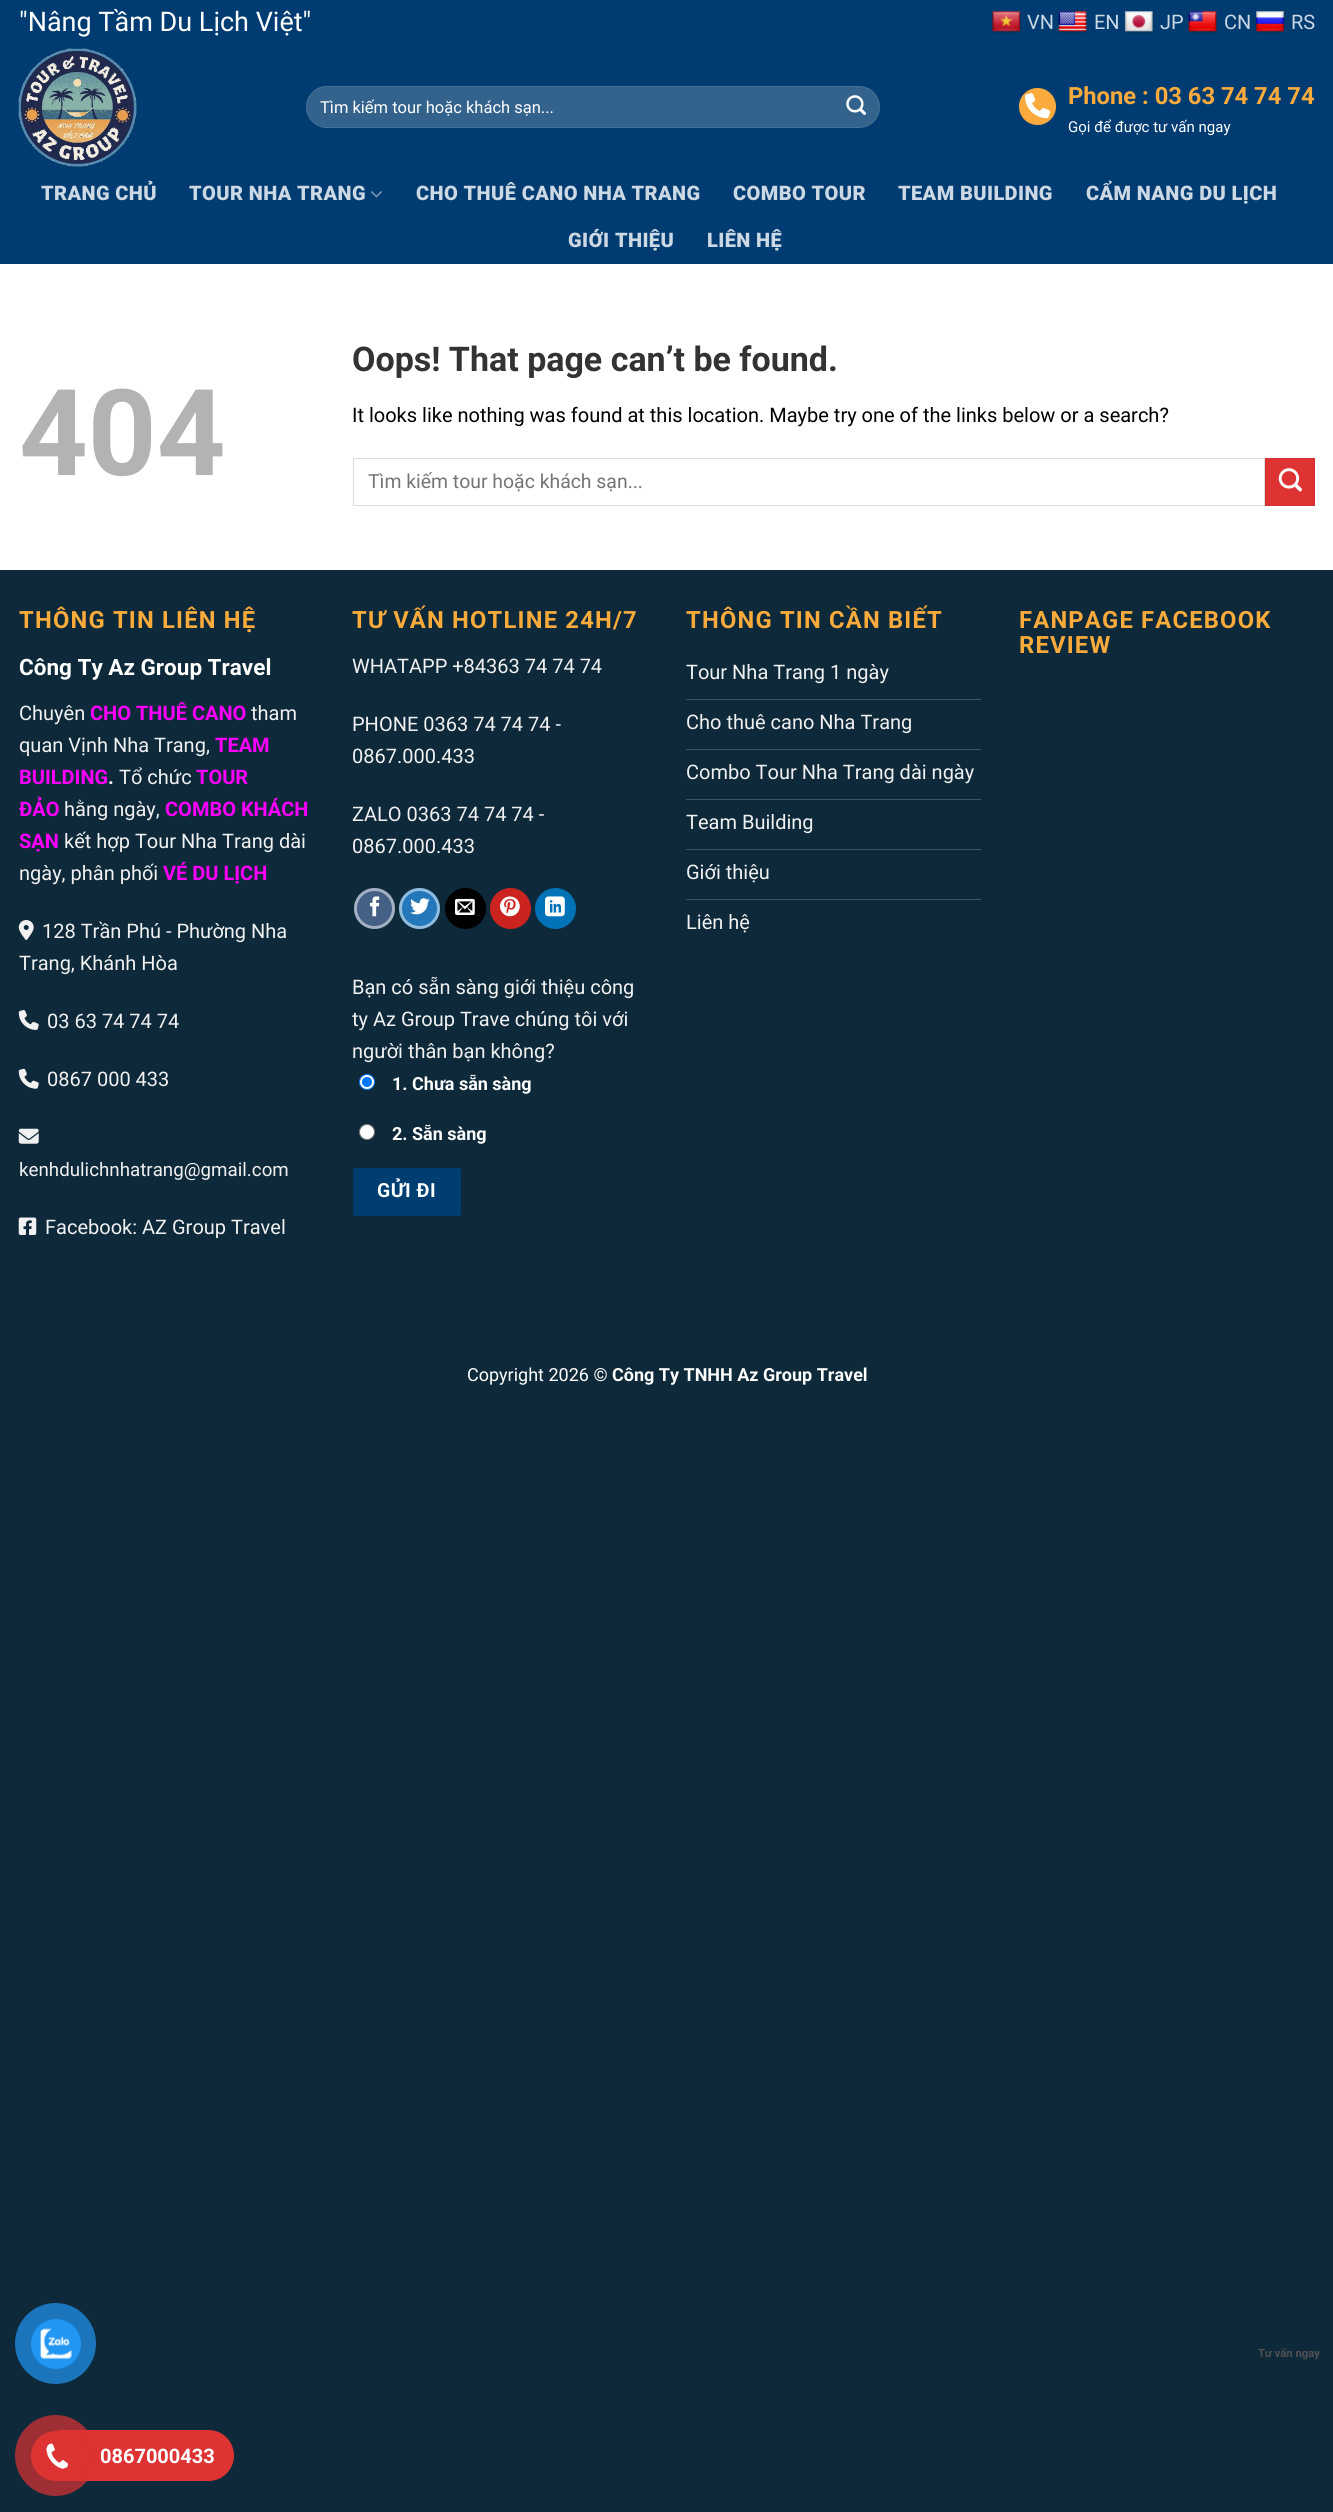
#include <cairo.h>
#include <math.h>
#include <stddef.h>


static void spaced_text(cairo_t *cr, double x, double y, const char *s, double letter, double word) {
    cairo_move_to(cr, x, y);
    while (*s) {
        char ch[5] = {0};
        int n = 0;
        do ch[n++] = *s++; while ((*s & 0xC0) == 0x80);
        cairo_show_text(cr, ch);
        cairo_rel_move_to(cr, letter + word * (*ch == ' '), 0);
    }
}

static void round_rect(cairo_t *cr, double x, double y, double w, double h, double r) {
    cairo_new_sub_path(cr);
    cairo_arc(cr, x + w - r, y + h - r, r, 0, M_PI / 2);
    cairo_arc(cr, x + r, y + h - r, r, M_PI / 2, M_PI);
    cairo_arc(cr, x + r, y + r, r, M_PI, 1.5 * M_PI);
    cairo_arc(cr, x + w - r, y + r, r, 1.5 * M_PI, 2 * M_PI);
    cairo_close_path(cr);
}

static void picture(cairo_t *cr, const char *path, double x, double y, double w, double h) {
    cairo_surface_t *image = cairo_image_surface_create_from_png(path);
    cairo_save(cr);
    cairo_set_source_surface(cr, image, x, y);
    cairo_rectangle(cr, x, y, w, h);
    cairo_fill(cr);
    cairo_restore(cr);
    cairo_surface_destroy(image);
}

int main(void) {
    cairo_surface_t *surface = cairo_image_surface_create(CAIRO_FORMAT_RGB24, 1333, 2512);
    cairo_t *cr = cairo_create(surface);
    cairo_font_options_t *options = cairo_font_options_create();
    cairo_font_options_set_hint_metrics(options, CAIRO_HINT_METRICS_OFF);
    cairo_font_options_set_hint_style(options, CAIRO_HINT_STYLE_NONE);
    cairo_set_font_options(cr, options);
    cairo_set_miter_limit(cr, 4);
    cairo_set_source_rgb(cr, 0.051, 0.161, 0.227);
    cairo_paint(cr);
    cairo_set_source_rgb(cr, 1, 1, 1);
    cairo_rectangle(cr, 0, 264, 1333, 306);
    cairo_fill(cr);
    cairo_set_source_rgb(cr, 0, 0.235, 0.443);
    cairo_rectangle(cr, 0, 0, 1333, 264);
    cairo_fill(cr);
    cairo_select_font_face(cr, "Roboto", CAIRO_FONT_SLANT_NORMAL, CAIRO_FONT_WEIGHT_NORMAL);
    cairo_set_font_size(cr, 27);
    cairo_set_source_rgb(cr, 1, 1, 1);
    cairo_move_to(cr, 19, 31);
    cairo_show_text(cr, "\"Nâng Tầm Du Lịch Việt\"");
    picture(cr, "img1.png", 991, 11, 30, 23);
    cairo_set_font_size(cr, 20);
    cairo_set_source_rgb(cr, 0.8, 0.847, 0.89);
    cairo_move_to(cr, 1027, 29);
    cairo_show_text(cr, "VN");
    picture(cr, "img2.png", 1058, 11, 29, 23);
    cairo_move_to(cr, 1094, 29);
    cairo_show_text(cr, "EN");
    picture(cr, "img3.png", 1124, 11, 30, 23);
    cairo_move_to(cr, 1160, 29);
    cairo_show_text(cr, "JP");
    picture(cr, "img4.png", 1188, 11, 29, 23);
    cairo_move_to(cr, 1224, 29);
    cairo_show_text(cr, "CN");
    picture(cr, "img5.png", 1255, 11, 30, 23);
    cairo_move_to(cr, 1291, 29);
    cairo_show_text(cr, "RS");
    picture(cr, "img6.png", 18, 48, 119, 119);
    cairo_set_source_rgb(cr, 0.2, 0.388, 0.553);
    round_rect(cr, 306, 86, 574, 42, 21);
    cairo_fill(cr);
    round_rect(cr, 306.5, 86.5, 573, 41, 20.5);
    cairo_set_source_rgba(cr, 1, 1, 1, 0.09);
    cairo_set_line_width(cr, 1);
    cairo_stroke(cr);
    cairo_set_font_size(cr, 16.5);
    cairo_set_source_rgb(cr, 1, 1, 1);
    cairo_move_to(cr, 320, 113);
    cairo_show_text(cr, "Tìm kiếm tour hoặc khách sạn...");
    picture(cr, "img7.png", 846, 95, 20, 20);
    cairo_set_source_rgb(cr, 0.98, 0.671, 0.231);
    cairo_arc(cr, 1037.5, 106.5, 18.5, 0, 2 * M_PI);
    cairo_fill(cr);
    picture(cr, "img8.png", 1025, 93, 25, 26);
    cairo_select_font_face(cr, "Roboto", CAIRO_FONT_SLANT_NORMAL, CAIRO_FONT_WEIGHT_BOLD);
    cairo_set_font_size(cr, 23.75);
    cairo_move_to(cr, 1068, 104);
    cairo_show_text(cr, "Phone : 03 63 74 74 74");
    cairo_select_font_face(cr, "Roboto", CAIRO_FONT_SLANT_NORMAL, CAIRO_FONT_WEIGHT_NORMAL);
    cairo_set_font_size(cr, 15);
    cairo_set_source_rgb(cr, 1, 1, 1);
    cairo_move_to(cr, 1068, 132);
    cairo_show_text(cr, "Gọi để được tư vấn ngay");
    cairo_select_font_face(cr, "Roboto Black", CAIRO_FONT_SLANT_NORMAL, CAIRO_FONT_WEIGHT_NORMAL);
    cairo_set_font_size(cr, 20);
    cairo_set_source_rgb(cr, 0.8, 0.847, 0.89);
    spaced_text(cr, 41, 200, "TRANG CHỦ", 0.4, 0);
    spaced_text(cr, 189, 200, "TOUR NHA TRANG", 0.4, 0);
    picture(cr, "img9.png", 371, 191, 11, 7);
    spaced_text(cr, 416, 200, "CHO THUÊ CANO NHA TRANG", 0.4, 0);
    spaced_text(cr, 733, 200, "COMBO TOUR", 0.4, 0);
    spaced_text(cr, 898, 200, "TEAM BUILDING", 0.4, 0);
    spaced_text(cr, 1086, 200, "CẨM NANG DU LỊCH", 0.4, 0);
    spaced_text(cr, 568, 247, "GIỚI THIỆU", 0.4, 0);
    spaced_text(cr, 707, 247, "LIÊN HỆ", 0.4, 0);
    cairo_select_font_face(cr, "Roboto", CAIRO_FONT_SLANT_NORMAL, CAIRO_FONT_WEIGHT_BOLD);
    cairo_set_font_size(cr, 120);
    cairo_set_source_rgb(cr, 0.702, 0.702, 0.702);
    cairo_move_to(cr, 19, 475);
    cairo_show_text(cr, "404");
    cairo_set_font_size(cr, 34);
    cairo_set_source_rgb(cr, 0.2, 0.2, 0.2);
    cairo_move_to(cr, 352, 371);
    cairo_show_text(cr, "Oops! That page can’t be found.");
    cairo_select_font_face(cr, "Roboto", CAIRO_FONT_SLANT_NORMAL, CAIRO_FONT_WEIGHT_NORMAL);
    cairo_set_font_size(cr, 20);
    cairo_set_source_rgb(cr, 0, 0, 0);
    cairo_move_to(cr, 352, 422);
    cairo_show_text(cr, "It looks like nothing was found at this location. Maybe try one of the links below or a search?");
    cairo_rectangle(cr, 353.5, 458.5, 911, 47);
    cairo_set_source_rgb(cr, 0.867, 0.867, 0.867);
    cairo_stroke(cr);
    cairo_set_font_size(cr, 19.4);
    cairo_set_source_rgb(cr, 0.459, 0.459, 0.459);
    cairo_move_to(cr, 368, 488);
    cairo_show_text(cr, "Tìm kiếm tour hoặc khách sạn...");
    cairo_set_source_rgb(cr, 0.867, 0.2, 0.2);
    cairo_rectangle(cr, 1265.5, 458.5, 49, 47);
    cairo_fill_preserve(cr);
    cairo_set_source_rgb(cr, 0.824, 0.188, 0.188);
    cairo_stroke(cr);
    picture(cr, "img10.png", 1278, 468, 24, 24);
    cairo_select_font_face(cr, "Roboto", CAIRO_FONT_SLANT_NORMAL, CAIRO_FONT_WEIGHT_BOLD);
    cairo_set_font_size(cr, 23.75);
    cairo_set_source_rgb(cr, 0.98, 0.671, 0.231);
    spaced_text(cr, 19, 628, "THÔNG TIN LIÊN HỆ", 1.2, 0);
    cairo_set_font_size(cr, 22.5);
    cairo_set_source_rgb(cr, 1, 1, 1);
    cairo_move_to(cr, 19, 675);
    cairo_show_text(cr, "Công Ty Az Group Travel");
    cairo_select_font_face(cr, "Roboto", CAIRO_FONT_SLANT_NORMAL, CAIRO_FONT_WEIGHT_NORMAL);
    cairo_set_font_size(cr, 20);
    cairo_set_source_rgb(cr, 0.945, 0.945, 0.945);
    cairo_move_to(cr, 19, 720);
    cairo_show_text(cr, "Chuyên");
    cairo_select_font_face(cr, "Roboto", CAIRO_FONT_SLANT_NORMAL, CAIRO_FONT_WEIGHT_BOLD);
    cairo_set_source_rgb(cr, 1, 0, 1);
    cairo_move_to(cr, 90, 720);
    cairo_show_text(cr, "CHO THUÊ CANO");
    cairo_select_font_face(cr, "Roboto", CAIRO_FONT_SLANT_NORMAL, CAIRO_FONT_WEIGHT_NORMAL);
    cairo_set_source_rgb(cr, 0.945, 0.945, 0.945);
    cairo_move_to(cr, 251, 720);
    cairo_show_text(cr, "tham");
    cairo_move_to(cr, 19, 752);
    cairo_show_text(cr, "quan Vịnh Nha Trang,");
    cairo_select_font_face(cr, "Roboto", CAIRO_FONT_SLANT_NORMAL, CAIRO_FONT_WEIGHT_BOLD);
    cairo_set_source_rgb(cr, 1, 0, 1);
    cairo_move_to(cr, 215, 752);
    cairo_show_text(cr, "TEAM");
    cairo_move_to(cr, 19, 784);
    cairo_show_text(cr, "BUILDING");
    cairo_set_source_rgb(cr, 0.945, 0.945, 0.945);
    cairo_move_to(cr, 108, 784);
    cairo_show_text(cr, ".");
    cairo_select_font_face(cr, "Roboto", CAIRO_FONT_SLANT_NORMAL, CAIRO_FONT_WEIGHT_NORMAL);
    cairo_move_to(cr, 119, 784);
    cairo_show_text(cr, "Tổ chức");
    cairo_select_font_face(cr, "Roboto", CAIRO_FONT_SLANT_NORMAL, CAIRO_FONT_WEIGHT_BOLD);
    cairo_set_source_rgb(cr, 1, 0, 1);
    cairo_move_to(cr, 196, 784);
    cairo_show_text(cr, "TOUR");
    cairo_move_to(cr, 19, 816);
    cairo_show_text(cr, "ĐẢO");
    cairo_select_font_face(cr, "Roboto", CAIRO_FONT_SLANT_NORMAL, CAIRO_FONT_WEIGHT_NORMAL);
    cairo_set_source_rgb(cr, 0.945, 0.945, 0.945);
    cairo_move_to(cr, 64, 816);
    cairo_show_text(cr, "hằng ngày,");
    cairo_select_font_face(cr, "Roboto", CAIRO_FONT_SLANT_NORMAL, CAIRO_FONT_WEIGHT_BOLD);
    cairo_set_source_rgb(cr, 1, 0, 1);
    cairo_move_to(cr, 165, 816);
    cairo_show_text(cr, "COMBO KHÁCH");
    cairo_move_to(cr, 19, 848);
    cairo_show_text(cr, "SẠN");
    cairo_select_font_face(cr, "Roboto", CAIRO_FONT_SLANT_NORMAL, CAIRO_FONT_WEIGHT_NORMAL);
    cairo_set_source_rgb(cr, 0.945, 0.945, 0.945);
    cairo_move_to(cr, 64, 848);
    cairo_show_text(cr, "kết hợp Tour Nha Trang dài");
    cairo_move_to(cr, 19, 880);
    cairo_show_text(cr, "ngày, phân phối");
    cairo_select_font_face(cr, "Roboto", CAIRO_FONT_SLANT_NORMAL, CAIRO_FONT_WEIGHT_BOLD);
    cairo_set_source_rgb(cr, 1, 0, 1);
    cairo_move_to(cr, 163, 880);
    cairo_show_text(cr, "VÉ DU LỊCH");
    picture(cr, "img11.png", 18, 920, 16, 20);
    cairo_select_font_face(cr, "Roboto", CAIRO_FONT_SLANT_NORMAL, CAIRO_FONT_WEIGHT_NORMAL);
    cairo_set_source_rgb(cr, 0.945, 0.945, 0.945);
    cairo_move_to(cr, 42, 938);
    cairo_show_text(cr, "128 Trần Phú - Phường Nha");
    cairo_move_to(cr, 19, 970);
    cairo_show_text(cr, "Trang, Khánh Hòa");
    picture(cr, "img12.png", 18, 1010, 21, 20);
    cairo_move_to(cr, 47, 1028);
    cairo_show_text(cr, "03 63 74 74 74");
    picture(cr, "img13.png", 18, 1068, 21, 21);
    cairo_move_to(cr, 47, 1086);
    cairo_show_text(cr, "0867 000 433");
    picture(cr, "img14.png", 18, 1128, 21, 16);
    cairo_set_font_size(cr, 18.75);
    cairo_move_to(cr, 19, 1176);
    cairo_show_text(cr, "kenhdulichnhatrang@gmail.com");
    picture(cr, "img15.png", 18, 1217, 19, 18);
    cairo_set_font_size(cr, 20);
    cairo_move_to(cr, 45, 1234);
    cairo_show_text(cr, "Facebook: AZ Group Travel");
    cairo_select_font_face(cr, "Roboto", CAIRO_FONT_SLANT_NORMAL, CAIRO_FONT_WEIGHT_BOLD);
    cairo_set_font_size(cr, 23.75);
    cairo_set_source_rgb(cr, 0.98, 0.671, 0.231);
    spaced_text(cr, 352, 628, "TƯ VẤN HOTLINE 24H/7", 1.2, 0);
    cairo_select_font_face(cr, "Roboto", CAIRO_FONT_SLANT_NORMAL, CAIRO_FONT_WEIGHT_NORMAL);
    cairo_set_font_size(cr, 20);
    cairo_set_source_rgb(cr, 0.945, 0.945, 0.945);
    cairo_move_to(cr, 352, 673);
    cairo_show_text(cr, "WHATAPP +84363 74 74 74");
    cairo_move_to(cr, 352, 731);
    cairo_show_text(cr, "PHONE 0363 74 74 74 -");
    cairo_move_to(cr, 352, 763);
    cairo_show_text(cr, "0867.000.433");
    cairo_move_to(cr, 352, 821);
    cairo_show_text(cr, "ZALO 0363 74 74 74 -");
    cairo_move_to(cr, 352, 853);
    cairo_show_text(cr, "0867.000.433");
    cairo_set_source_rgb(cr, 0.267, 0.376, 0.518);
    cairo_new_path(cr);
    cairo_arc(cr, 374.5, 908.5, 20.5, 0, 2 * M_PI);
    cairo_fill(cr);
    cairo_arc(cr, 374.5, 908.5, 19, 0, 2 * M_PI);
    cairo_set_source_rgba(cr, 1, 1, 1, 0.5);
    cairo_set_line_width(cr, 3);
    cairo_stroke(cr);
    picture(cr, "img16.png", 369, 896, 11, 21);
    cairo_set_source_rgb(cr, 0.141, 0.471, 0.729);
    cairo_arc(cr, 419.5, 908.5, 20.5, 0, 2 * M_PI);
    cairo_fill(cr);
    cairo_arc(cr, 419.5, 908.5, 19, 0, 2 * M_PI);
    cairo_set_source_rgba(cr, 1, 1, 1, 0.5);
    cairo_stroke(cr);
    picture(cr, "img17.png", 410, 898, 20, 17);
    cairo_set_source_rgb(cr, 0, 0, 0);
    cairo_arc(cr, 465.5, 908.5, 19, 0, 2 * M_PI);
    cairo_fill_preserve(cr);
    cairo_stroke(cr);
    picture(cr, "img18.png", 455, 898, 20, 17);
    cairo_set_source_rgb(cr, 0.796, 0.137, 0.125);
    cairo_arc(cr, 510.5, 908.5, 19, 0, 2 * M_PI);
    cairo_fill_preserve(cr);
    cairo_stroke(cr);
    picture(cr, "img19.png", 500, 896, 20, 21);
    cairo_set_source_rgb(cr, 0, 0.447, 0.718);
    cairo_arc(cr, 555.5, 908.5, 19, 0, 2 * M_PI);
    cairo_fill_preserve(cr);
    cairo_stroke(cr);
    picture(cr, "img20.png", 545, 896, 20, 21);
    cairo_set_source_rgb(cr, 0.945, 0.945, 0.945);
    cairo_move_to(cr, 352, 994);
    cairo_show_text(cr, "Bạn có sẵn sàng giới thiệu công");
    cairo_move_to(cr, 352, 1026);
    cairo_show_text(cr, "ty Az Group Trave chúng tôi với");
    cairo_move_to(cr, 352, 1058);
    cairo_show_text(cr, "người thân bạn không?");
    cairo_set_source_rgb(cr, 1, 1, 1);
    cairo_new_path(cr);
    cairo_arc(cr, 367, 1082, 7.5, 0, 2 * M_PI);
    cairo_fill_preserve(cr);
    cairo_set_source_rgb(cr, 0, 0.459, 1);
    cairo_set_line_width(cr, 1);
    cairo_stroke(cr);
    cairo_arc(cr, 367, 1082, 5, 0, 2 * M_PI);
    cairo_fill(cr);
    cairo_select_font_face(cr, "Roboto", CAIRO_FONT_SLANT_NORMAL, CAIRO_FONT_WEIGHT_BOLD);
    cairo_set_font_size(cr, 18);
    cairo_set_source_rgb(cr, 1, 1, 1);
    cairo_move_to(cr, 392, 1090);
    cairo_show_text(cr, "1. Chưa sẵn sàng");
    cairo_new_path(cr);
    cairo_arc(cr, 367, 1132, 7.5, 0, 2 * M_PI);
    cairo_fill_preserve(cr);
    cairo_set_source_rgb(cr, 0.463, 0.463, 0.463);
    cairo_stroke(cr);
    cairo_set_source_rgb(cr, 1, 1, 1);
    cairo_move_to(cr, 392, 1140);
    cairo_show_text(cr, "2. Sẵn sàng");
    cairo_set_source_rgb(cr, 0, 0.239, 0.443);
    cairo_rectangle(cr, 353.5, 1168.5, 107, 47);
    cairo_fill_preserve(cr);
    cairo_set_source_rgb(cr, 0, 0.227, 0.42);
    cairo_stroke(cr);
    cairo_set_font_size(cr, 19.4);
    cairo_set_source_rgb(cr, 1, 1, 1);
    spaced_text(cr, 377, 1197, "GỬI ĐI", 0.5, 0);
    cairo_set_font_size(cr, 23.75);
    cairo_set_source_rgb(cr, 0.98, 0.671, 0.231);
    spaced_text(cr, 686, 628, "THÔNG TIN CẦN BIẾT", 1.2, 0);
    cairo_set_source_rgb(cr, 0.239, 0.333, 0.38);
    cairo_rectangle(cr, 686, 699, 295, 1);
    cairo_fill(cr);
    cairo_select_font_face(cr, "Roboto", CAIRO_FONT_SLANT_NORMAL, CAIRO_FONT_WEIGHT_NORMAL);
    cairo_set_font_size(cr, 20);
    cairo_set_source_rgb(cr, 0.945, 0.945, 0.945);
    cairo_move_to(cr, 686, 679);
    cairo_show_text(cr, "Tour Nha Trang 1 ngày");
    cairo_set_source_rgb(cr, 0.239, 0.333, 0.38);
    cairo_rectangle(cr, 686, 749, 295, 1);
    cairo_fill(cr);
    cairo_set_source_rgb(cr, 0.945, 0.945, 0.945);
    cairo_move_to(cr, 686, 729);
    cairo_show_text(cr, "Cho thuê cano Nha Trang");
    cairo_set_source_rgb(cr, 0.239, 0.333, 0.38);
    cairo_rectangle(cr, 686, 799, 295, 1);
    cairo_fill(cr);
    cairo_set_source_rgb(cr, 0.945, 0.945, 0.945);
    cairo_move_to(cr, 686, 779);
    cairo_show_text(cr, "Combo Tour Nha Trang dài ngày");
    cairo_set_source_rgb(cr, 0.239, 0.333, 0.38);
    cairo_rectangle(cr, 686, 849, 295, 1);
    cairo_fill(cr);
    cairo_set_source_rgb(cr, 0.945, 0.945, 0.945);
    cairo_move_to(cr, 686, 829);
    cairo_show_text(cr, "Team Building");
    cairo_set_source_rgb(cr, 0.239, 0.333, 0.38);
    cairo_rectangle(cr, 686, 899, 295, 1);
    cairo_fill(cr);
    cairo_set_source_rgb(cr, 0.945, 0.945, 0.945);
    cairo_move_to(cr, 686, 879);
    cairo_show_text(cr, "Giới thiệu");
    cairo_move_to(cr, 686, 929);
    cairo_show_text(cr, "Liên hệ");
    cairo_select_font_face(cr, "Roboto", CAIRO_FONT_SLANT_NORMAL, CAIRO_FONT_WEIGHT_BOLD);
    cairo_set_font_size(cr, 23.75);
    cairo_set_source_rgb(cr, 0.98, 0.671, 0.231);
    spaced_text(cr, 1019, 628, "FANPAGE FACEBOOK", 1.2, 0);
    spaced_text(cr, 1019, 653, "REVIEW", 1.2, 0);
    cairo_select_font_face(cr, "Roboto", CAIRO_FONT_SLANT_NORMAL, CAIRO_FONT_WEIGHT_NORMAL);
    cairo_set_font_size(cr, 18);
    cairo_set_source_rgb(cr, 1, 1, 1);
    cairo_move_to(cr, 467, 1381);
    cairo_show_text(cr, "Copyright 2026 ©");
    cairo_select_font_face(cr, "Roboto", CAIRO_FONT_SLANT_NORMAL, CAIRO_FONT_WEIGHT_BOLD);
    cairo_move_to(cr, 612, 1381);
    cairo_show_text(cr, "Công Ty TNHH Az Group Travel");
    cairo_set_font_size(cr, 11.25);
    cairo_set_source_rgb(cr, 0.318, 0.318, 0.318);
    cairo_move_to(cr, 1258, 2357);
    cairo_show_text(cr, "Tư vấn ngay");
    cairo_set_source_rgb(cr, 0.106, 0.459, 0.737);
    cairo_new_path(cr);
    cairo_arc(cr, 55.5, 2343.5, 40.5, 0, 2 * M_PI);
    cairo_fill(cr);
    cairo_set_source_rgb(cr, 0.129, 0.588, 0.953);
    cairo_arc(cr, 56, 2344, 25, 0, 2 * M_PI);
    cairo_fill(cr);
    picture(cr, "img21.png", 39, 2328, 33, 32);
    cairo_set_source_rgb(cr, 0.867, 0.2, 0.2);
    round_rect(cr, 38, 2430, 196, 51, 25.5);
    cairo_fill(cr);
    cairo_set_source_rgba(cr, 0.867, 0.2, 0.2, 0.7);
    cairo_arc(cr, 55.5, 2455.5, 40.5, 0, 2 * M_PI);
    cairo_fill(cr);
    cairo_set_source_rgb(cr, 0.867, 0.2, 0.2);
    cairo_arc(cr, 56, 2456, 25, 0, 2 * M_PI);
    cairo_fill(cr);
    picture(cr, "img22.png", 46, 2443, 22, 26);
    cairo_set_font_size(cr, 20);
    cairo_set_source_rgb(cr, 1, 1, 1);
    cairo_move_to(cr, 100, 2463);
    cairo_show_text(cr, "0867000433");
    cairo_surface_write_to_png(surface, "page.png");
    cairo_font_options_destroy(options);
    cairo_destroy(cr);
    cairo_surface_destroy(surface);
    return 0;
}
